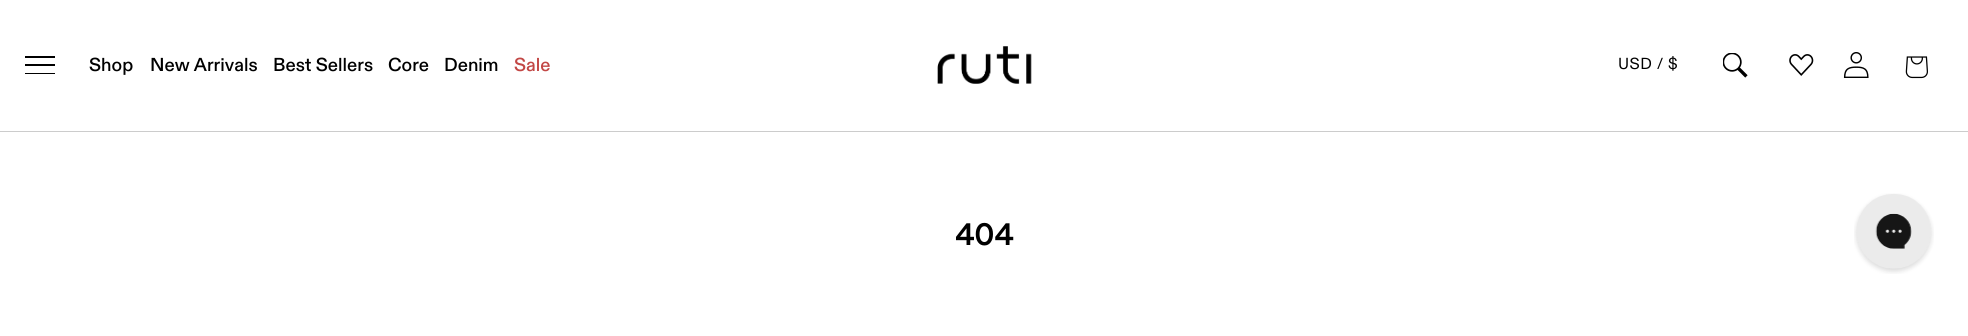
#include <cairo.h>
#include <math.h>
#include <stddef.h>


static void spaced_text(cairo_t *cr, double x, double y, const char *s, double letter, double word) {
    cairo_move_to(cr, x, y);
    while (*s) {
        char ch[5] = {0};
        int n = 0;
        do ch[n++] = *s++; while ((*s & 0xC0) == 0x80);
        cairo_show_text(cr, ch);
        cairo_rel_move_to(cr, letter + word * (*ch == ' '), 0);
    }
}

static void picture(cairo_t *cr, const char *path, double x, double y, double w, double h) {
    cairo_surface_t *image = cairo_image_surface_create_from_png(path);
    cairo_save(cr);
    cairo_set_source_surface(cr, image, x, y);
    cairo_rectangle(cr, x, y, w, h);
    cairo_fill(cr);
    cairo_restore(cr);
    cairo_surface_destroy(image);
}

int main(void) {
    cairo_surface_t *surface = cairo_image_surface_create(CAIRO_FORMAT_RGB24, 1968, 336);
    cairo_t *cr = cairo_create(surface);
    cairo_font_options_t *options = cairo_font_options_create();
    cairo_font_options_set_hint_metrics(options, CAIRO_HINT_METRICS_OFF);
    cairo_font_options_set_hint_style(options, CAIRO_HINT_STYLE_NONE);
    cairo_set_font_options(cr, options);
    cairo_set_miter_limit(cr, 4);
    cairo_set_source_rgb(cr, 1, 1, 1);
    cairo_paint(cr);
    cairo_set_source_rgb(cr, 0.8, 0.8, 0.8);
    cairo_rectangle(cr, 0, 131, 1968, 1);
    cairo_fill(cr);
    cairo_set_source_rgb(cr, 0, 0, 0);
    cairo_rectangle(cr, 25, 73, 30, 1);
    cairo_fill(cr);
    cairo_rectangle(cr, 25, 64, 30, 2);
    cairo_fill(cr);
    cairo_rectangle(cr, 25, 56, 30, 2);
    cairo_fill(cr);
    cairo_select_font_face(cr, "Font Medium", CAIRO_FONT_SLANT_NORMAL, CAIRO_FONT_WEIGHT_NORMAL);
    cairo_set_font_size(cr, 18.75);
    cairo_move_to(cr, 89, 71);
    cairo_show_text(cr, "Shop");
    cairo_move_to(cr, 150, 71);
    cairo_show_text(cr, "New Arrivals");
    cairo_move_to(cr, 273, 71);
    cairo_show_text(cr, "Best Sellers");
    cairo_move_to(cr, 388, 71);
    cairo_show_text(cr, "Core");
    cairo_move_to(cr, 444, 71);
    cairo_show_text(cr, "Denim");
    cairo_set_source_rgb(cr, 0.761, 0.278, 0.271);
    cairo_move_to(cr, 514, 71);
    cairo_show_text(cr, "Sale");
    picture(cr, "img1.png", 937, 46, 95, 38);
    cairo_select_font_face(cr, "Font", CAIRO_FONT_SLANT_NORMAL, CAIRO_FONT_WEIGHT_NORMAL);
    cairo_set_font_size(cr, 16);
    cairo_set_source_rgb(cr, 0, 0, 0);
    spaced_text(cr, 1618, 69, "USD / $", 0.5, 0);
    picture(cr, "img2.png", 1723, 53, 25, 25);
    picture(cr, "img3.png", 1789, 54, 25, 22);
    picture(cr, "img4.png", 1843, 52, 26, 26);
    picture(cr, "img5.png", 1905, 56, 23, 23);
    cairo_select_font_face(cr, "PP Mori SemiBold", CAIRO_FONT_SLANT_NORMAL, CAIRO_FONT_WEIGHT_NORMAL);
    cairo_set_font_size(cr, 31);
    cairo_move_to(cr, 955, 245);
    cairo_show_text(cr, "404");
    picture(cr, "img6.png", 1854, 193, 80, 81);
    cairo_surface_write_to_png(surface, "page.png");
    cairo_font_options_destroy(options);
    cairo_destroy(cr);
    cairo_surface_destroy(surface);
    return 0;
}
